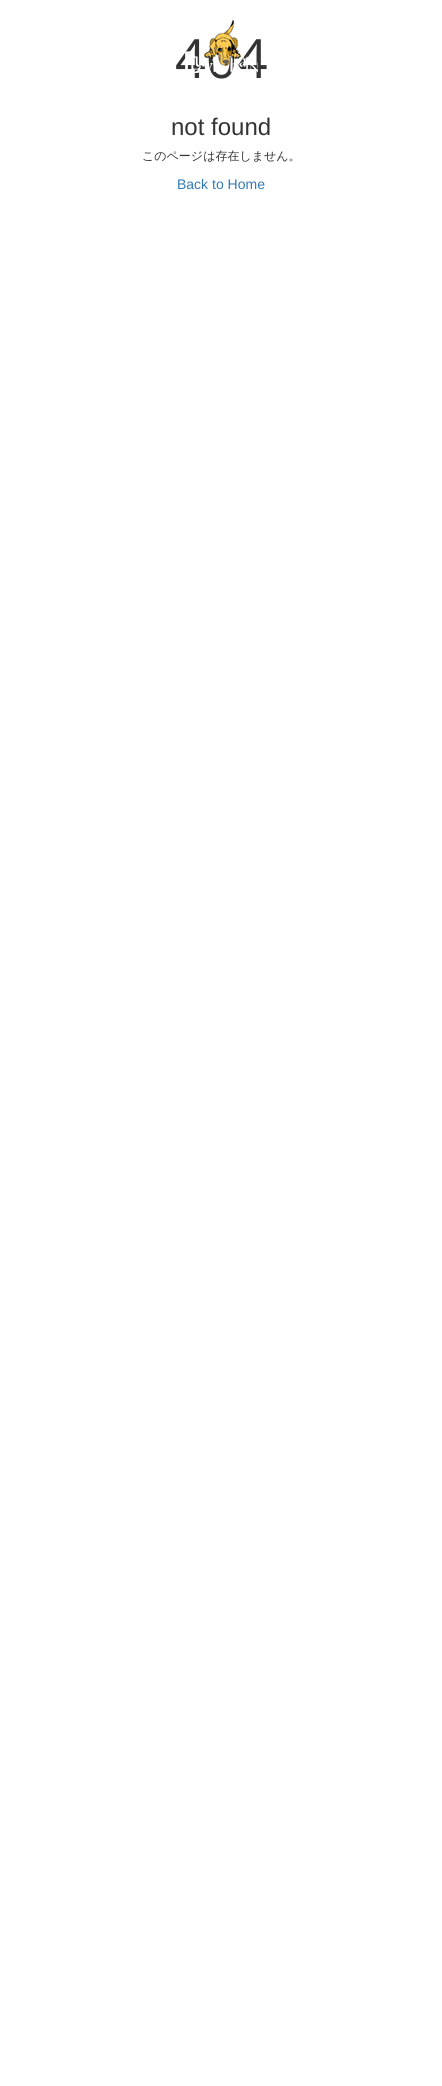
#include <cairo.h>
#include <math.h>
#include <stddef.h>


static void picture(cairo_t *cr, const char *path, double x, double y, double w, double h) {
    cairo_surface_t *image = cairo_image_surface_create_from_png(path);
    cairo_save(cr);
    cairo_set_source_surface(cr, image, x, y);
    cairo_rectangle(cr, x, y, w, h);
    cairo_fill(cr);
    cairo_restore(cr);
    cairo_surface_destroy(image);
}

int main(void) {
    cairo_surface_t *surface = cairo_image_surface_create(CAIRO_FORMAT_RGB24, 442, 2086);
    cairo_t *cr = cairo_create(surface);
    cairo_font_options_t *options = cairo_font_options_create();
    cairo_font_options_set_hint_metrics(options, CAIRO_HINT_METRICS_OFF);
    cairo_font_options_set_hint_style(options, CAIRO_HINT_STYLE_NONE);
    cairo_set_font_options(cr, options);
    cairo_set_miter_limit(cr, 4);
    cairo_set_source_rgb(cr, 1, 1, 1);
    cairo_paint(cr);
    cairo_select_font_face(cr, "Open Sans", CAIRO_FONT_SLANT_NORMAL, CAIRO_FONT_WEIGHT_NORMAL);
    cairo_set_font_size(cr, 54);
    cairo_set_source_rgb(cr, 0.2, 0.2, 0.2);
    cairo_move_to(cr, 175, 78);
    cairo_show_text(cr, "404");
    picture(cr, "img1.png", 185, 20, 73, 53);
    cairo_select_font_face(cr, "Liberation Sans", CAIRO_FONT_SLANT_NORMAL, CAIRO_FONT_WEIGHT_NORMAL);
    cairo_set_font_size(cr, 24);
    cairo_move_to(cr, 171, 135);
    cairo_show_text(cr, "not found");
    cairo_select_font_face(cr, "WenQuanYi Zen Hei Medium", CAIRO_FONT_SLANT_NORMAL, CAIRO_FONT_WEIGHT_NORMAL);
    cairo_set_font_size(cr, 12);
    cairo_move_to(cr, 142, 160);
    cairo_show_text(cr, "このページは存在しません。");
    cairo_select_font_face(cr, "Liberation Sans", CAIRO_FONT_SLANT_NORMAL, CAIRO_FONT_WEIGHT_NORMAL);
    cairo_set_font_size(cr, 14);
    cairo_set_source_rgb(cr, 0.2, 0.478, 0.718);
    cairo_move_to(cr, 177, 189);
    cairo_show_text(cr, "Back to Home");
    cairo_surface_write_to_png(surface, "page.png");
    cairo_font_options_destroy(options);
    cairo_destroy(cr);
    cairo_surface_destroy(surface);
    return 0;
}
